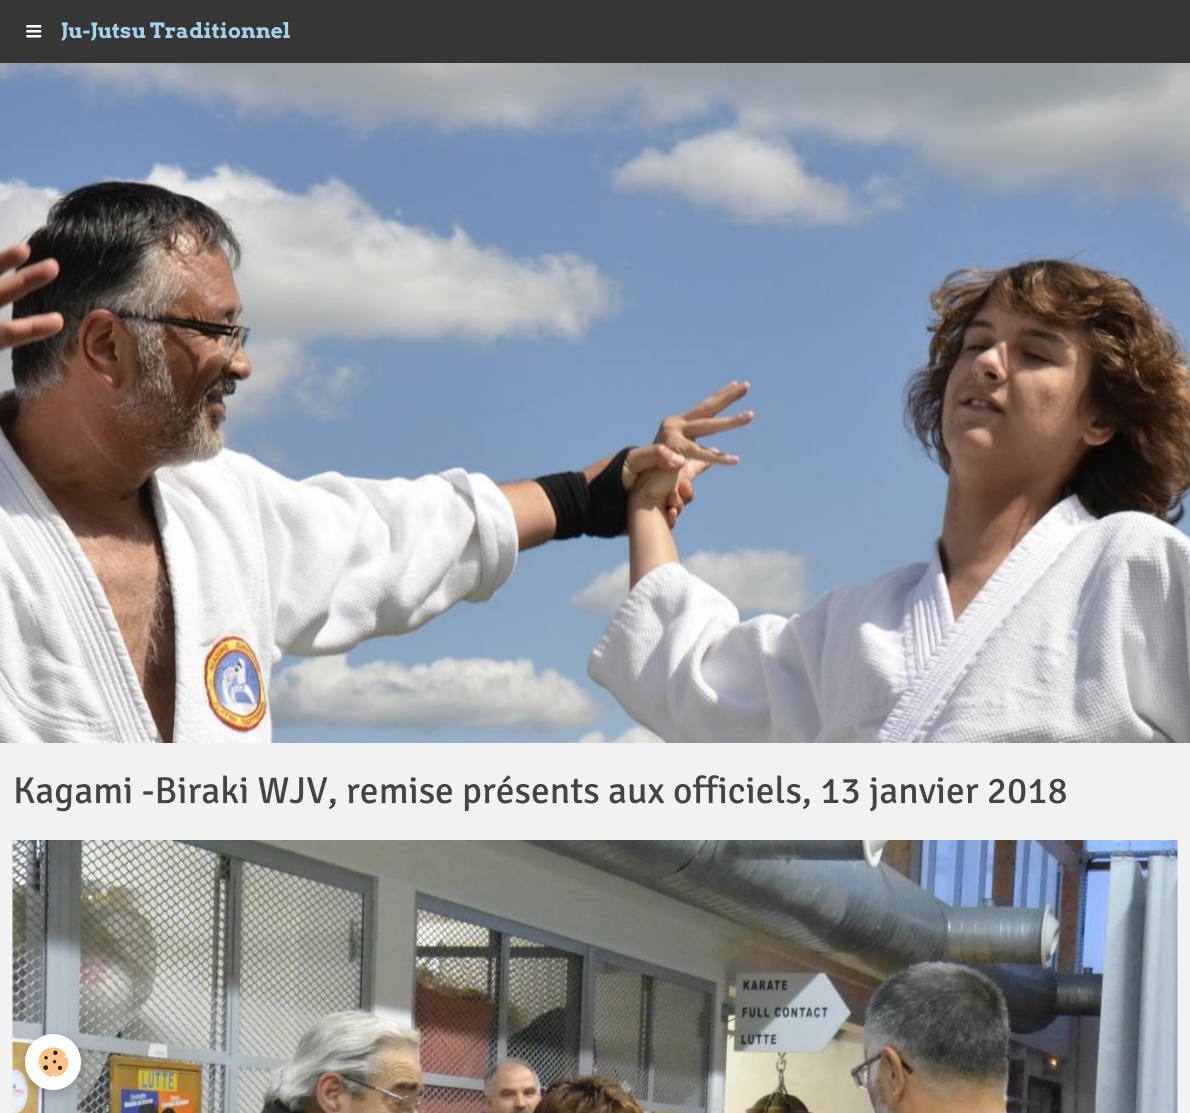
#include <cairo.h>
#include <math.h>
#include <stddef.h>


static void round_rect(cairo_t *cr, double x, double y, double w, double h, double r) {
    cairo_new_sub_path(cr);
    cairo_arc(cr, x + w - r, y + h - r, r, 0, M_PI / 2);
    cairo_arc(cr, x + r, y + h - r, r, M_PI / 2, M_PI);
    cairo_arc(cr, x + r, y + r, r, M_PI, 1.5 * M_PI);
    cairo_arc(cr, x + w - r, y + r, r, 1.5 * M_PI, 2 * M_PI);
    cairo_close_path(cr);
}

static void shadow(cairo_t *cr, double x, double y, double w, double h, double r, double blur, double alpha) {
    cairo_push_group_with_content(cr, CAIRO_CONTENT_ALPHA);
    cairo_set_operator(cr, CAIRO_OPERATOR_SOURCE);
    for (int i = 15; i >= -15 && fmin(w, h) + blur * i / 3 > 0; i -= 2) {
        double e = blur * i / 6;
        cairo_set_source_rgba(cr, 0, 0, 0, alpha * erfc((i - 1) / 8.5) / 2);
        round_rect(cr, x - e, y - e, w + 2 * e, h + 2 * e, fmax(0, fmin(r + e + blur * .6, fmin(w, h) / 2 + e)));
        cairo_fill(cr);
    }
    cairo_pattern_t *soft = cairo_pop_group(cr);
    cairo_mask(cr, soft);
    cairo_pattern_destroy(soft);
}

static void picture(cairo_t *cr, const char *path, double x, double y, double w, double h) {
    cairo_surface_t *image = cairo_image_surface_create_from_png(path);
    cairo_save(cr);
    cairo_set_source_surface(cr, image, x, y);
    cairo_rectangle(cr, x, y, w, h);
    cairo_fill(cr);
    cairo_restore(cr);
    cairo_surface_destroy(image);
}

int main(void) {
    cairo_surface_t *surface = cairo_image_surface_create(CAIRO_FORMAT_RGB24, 1190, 1113);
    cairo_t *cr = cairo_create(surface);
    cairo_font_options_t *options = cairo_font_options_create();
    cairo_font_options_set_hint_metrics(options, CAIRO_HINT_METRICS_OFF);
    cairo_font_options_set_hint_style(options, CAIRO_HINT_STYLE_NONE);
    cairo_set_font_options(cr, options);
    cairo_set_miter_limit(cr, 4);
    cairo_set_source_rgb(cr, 0.949, 0.949, 0.949);
    cairo_paint(cr);
    cairo_set_source_rgb(cr, 0.212, 0.212, 0.212);
    cairo_rectangle(cr, 0, 0, 1190, 63);
    cairo_fill(cr);
    picture(cr, "img1.png", 26, 25, 16, 13);
    cairo_select_font_face(cr, "Arvo", CAIRO_FONT_SLANT_NORMAL, CAIRO_FONT_WEIGHT_BOLD);
    cairo_set_font_size(cr, 21);
    cairo_set_source_rgb(cr, 0.639, 0.827, 0.914);
    cairo_move_to(cr, 61, 38);
    cairo_show_text(cr, "Ju-Jutsu Traditionnel");
    picture(cr, "img2.png", 0, 63, 1190, 680);
    cairo_select_font_face(cr, "Signika", CAIRO_FONT_SLANT_NORMAL, CAIRO_FONT_WEIGHT_NORMAL);
    cairo_set_font_size(cr, 37.5);
    cairo_set_source_rgb(cr, 0.267, 0.267, 0.267);
    cairo_move_to(cr, 13, 803);
    cairo_show_text(cr, "Kagami -Biraki WJV, remise présents aux officiels, 13 janvier 2018");
    picture(cr, "img3.png", 12, 840, 1166, 273);
    cairo_set_source_rgb(cr, 0, 0, 0);
    shadow(cr, 25, 1038, 56, 56, 28, 6, 0.24);
    cairo_set_source_rgb(cr, 1, 1, 1);
    cairo_arc(cr, 53, 1062, 28, 0, 2 * M_PI);
    cairo_fill(cr);
    picture(cr, "img4.png", 38, 1047, 31, 30);
    cairo_surface_write_to_png(surface, "page.png");
    cairo_font_options_destroy(options);
    cairo_destroy(cr);
    cairo_surface_destroy(surface);
    return 0;
}
